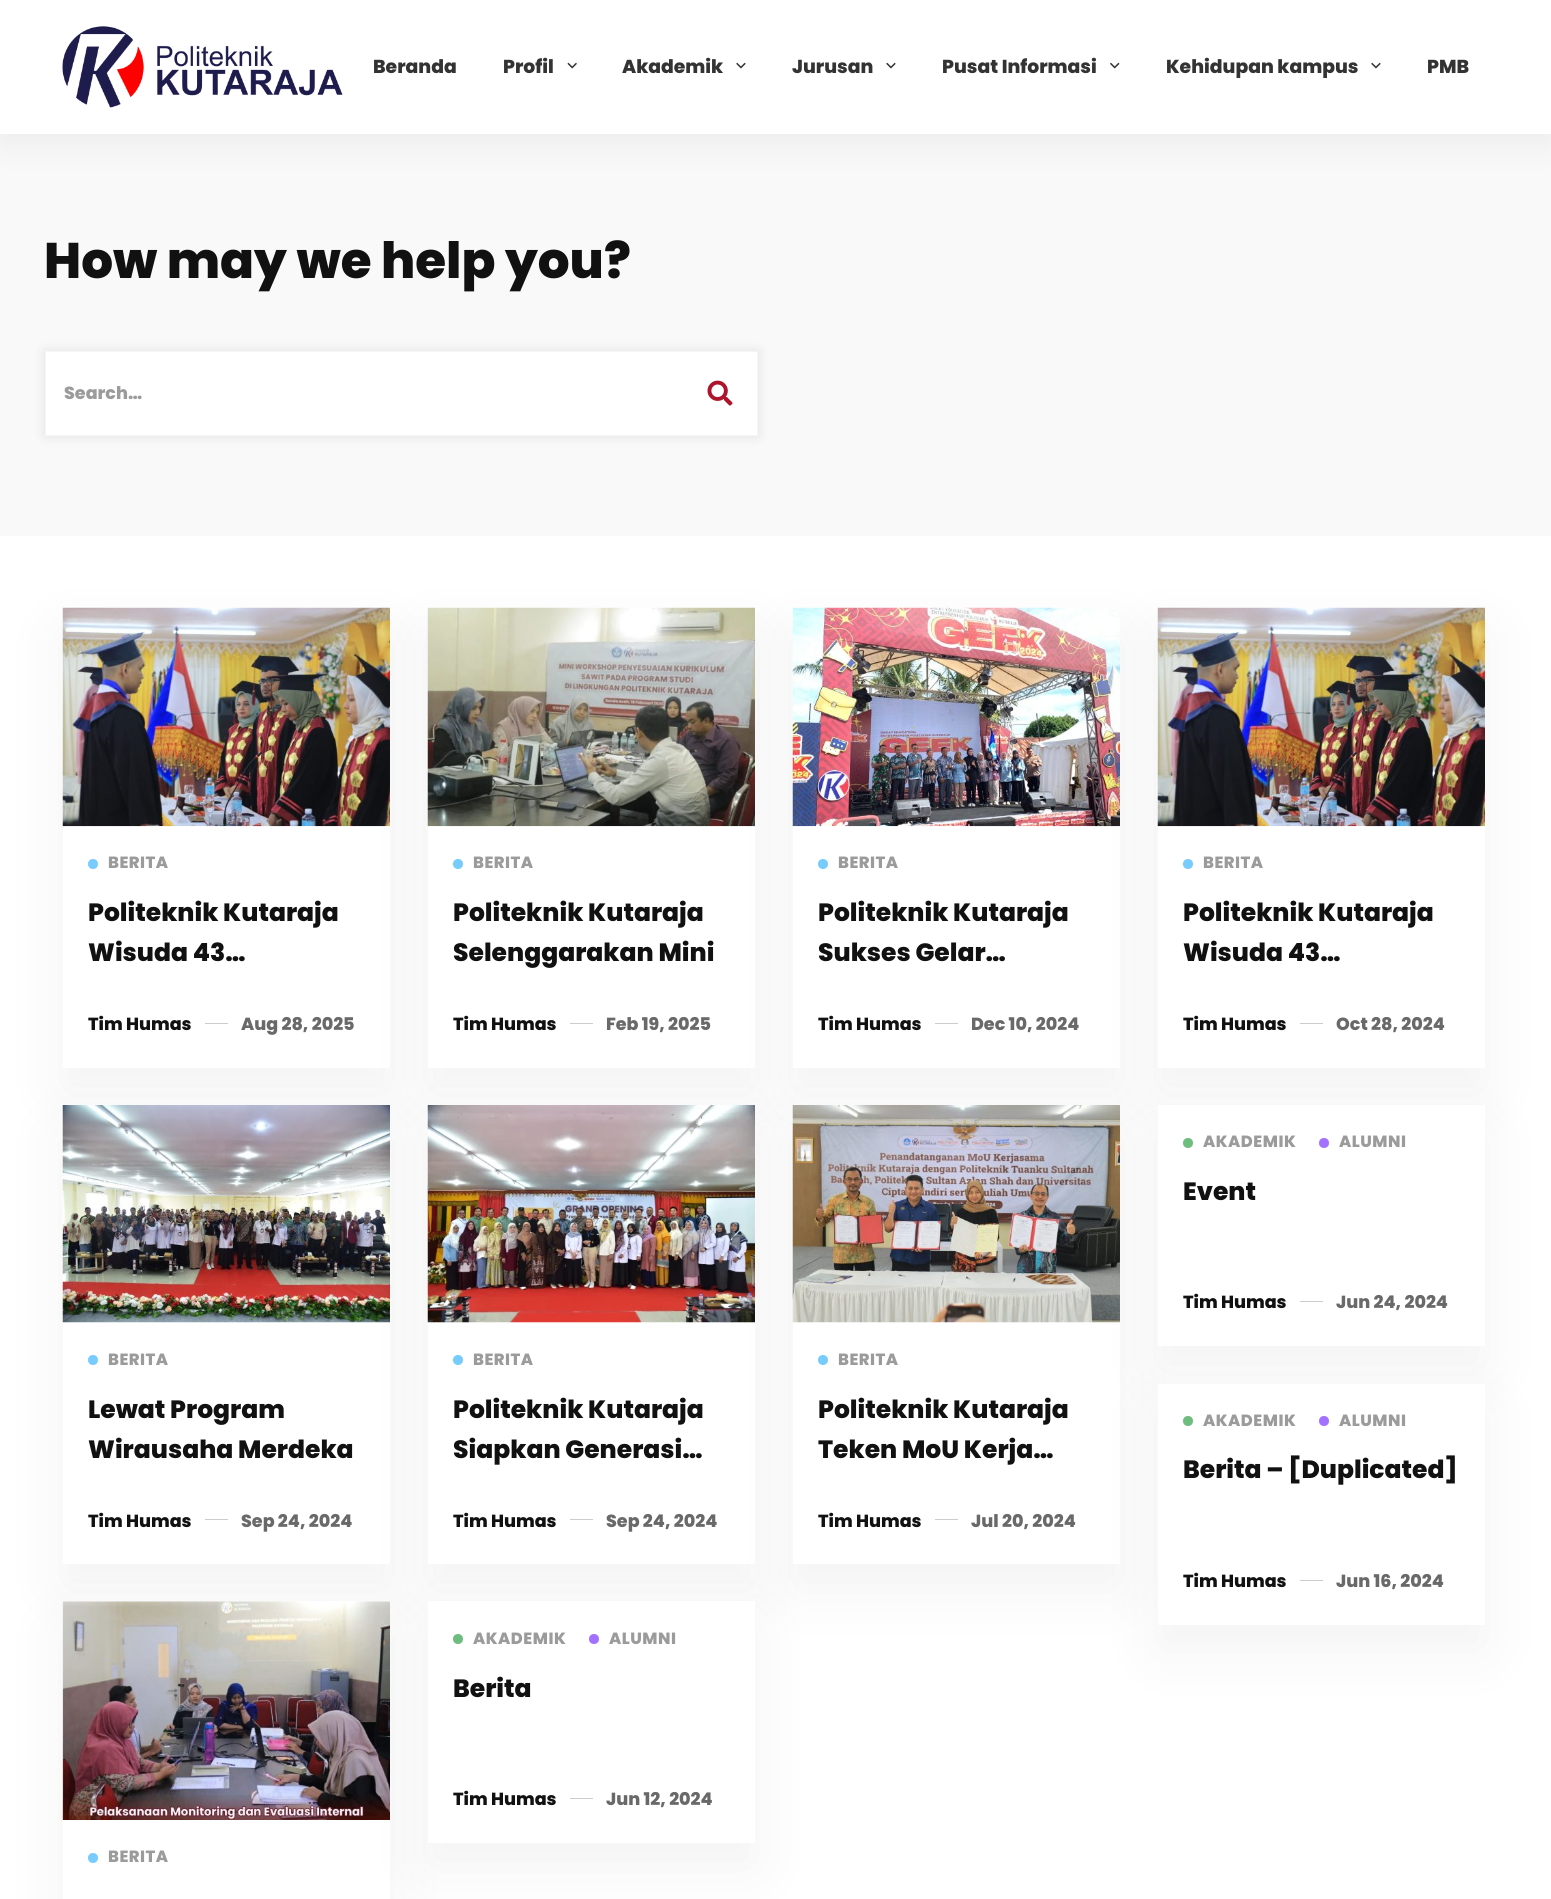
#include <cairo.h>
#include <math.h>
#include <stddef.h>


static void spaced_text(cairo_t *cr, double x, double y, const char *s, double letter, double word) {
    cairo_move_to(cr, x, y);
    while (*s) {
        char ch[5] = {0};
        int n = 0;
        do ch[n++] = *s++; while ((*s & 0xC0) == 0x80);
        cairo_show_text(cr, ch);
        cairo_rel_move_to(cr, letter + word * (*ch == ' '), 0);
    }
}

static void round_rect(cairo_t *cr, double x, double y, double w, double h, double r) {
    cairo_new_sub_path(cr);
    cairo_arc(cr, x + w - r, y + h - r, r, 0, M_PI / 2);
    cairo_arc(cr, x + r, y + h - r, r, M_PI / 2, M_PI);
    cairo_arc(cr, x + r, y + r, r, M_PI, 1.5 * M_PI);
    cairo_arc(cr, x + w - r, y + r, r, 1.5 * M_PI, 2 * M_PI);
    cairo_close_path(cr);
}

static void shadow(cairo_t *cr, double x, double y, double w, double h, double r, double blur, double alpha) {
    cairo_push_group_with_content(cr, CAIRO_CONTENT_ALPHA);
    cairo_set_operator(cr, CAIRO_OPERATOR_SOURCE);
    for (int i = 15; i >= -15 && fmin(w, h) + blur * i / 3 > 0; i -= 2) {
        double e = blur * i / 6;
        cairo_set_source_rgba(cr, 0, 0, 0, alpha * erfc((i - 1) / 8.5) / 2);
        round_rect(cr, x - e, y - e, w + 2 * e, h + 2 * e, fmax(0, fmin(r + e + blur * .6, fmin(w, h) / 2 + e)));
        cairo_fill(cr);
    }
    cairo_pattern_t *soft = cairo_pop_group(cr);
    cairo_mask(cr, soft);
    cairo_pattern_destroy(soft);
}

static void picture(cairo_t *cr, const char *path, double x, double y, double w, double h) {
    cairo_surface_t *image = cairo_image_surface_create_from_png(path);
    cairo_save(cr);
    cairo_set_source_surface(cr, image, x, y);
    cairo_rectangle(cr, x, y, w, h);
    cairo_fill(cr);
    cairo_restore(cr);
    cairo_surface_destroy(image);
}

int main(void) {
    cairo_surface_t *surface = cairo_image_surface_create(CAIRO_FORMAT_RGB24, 1551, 1899);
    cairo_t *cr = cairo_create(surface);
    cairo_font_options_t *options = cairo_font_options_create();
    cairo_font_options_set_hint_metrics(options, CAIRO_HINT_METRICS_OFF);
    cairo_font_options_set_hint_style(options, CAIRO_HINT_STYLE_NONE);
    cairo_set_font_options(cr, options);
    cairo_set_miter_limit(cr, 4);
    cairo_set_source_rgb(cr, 1, 1, 1);
    cairo_paint(cr);
    cairo_set_source_rgb(cr, 0.973, 0.973, 0.973);
    cairo_rectangle(cr, 0, 134, 1551, 402);
    cairo_fill(cr);
    cairo_set_source_rgb(cr, 0, 0, 0);
    shadow(cr, 0, 13, 1551, 133, 0, 16, 0.05);
    cairo_set_source_rgb(cr, 1, 1, 1);
    cairo_rectangle(cr, 0, 0, 1551, 134);
    cairo_fill(cr);
    picture(cr, "img1.png", 62, 26, 281, 82);
    cairo_select_font_face(cr, "Poppins ExtraBold", CAIRO_FONT_SLANT_NORMAL, CAIRO_FONT_WEIGHT_NORMAL);
    cairo_set_font_size(cr, 18.75);
    cairo_set_source_rgb(cr, 0.2, 0.2, 0.2);
    cairo_move_to(cr, 373, 73);
    cairo_show_text(cr, "Beranda");
    cairo_move_to(cr, 503, 73);
    cairo_show_text(cr, "Profil");
    picture(cr, "img2.png", 567, 62, 10, 7);
    cairo_move_to(cr, 622, 73);
    cairo_show_text(cr, "Akademik");
    picture(cr, "img3.png", 736, 62, 10, 7);
    cairo_move_to(cr, 792, 73);
    cairo_show_text(cr, "Jurusan");
    picture(cr, "img3.png", 886, 62, 10, 7);
    cairo_move_to(cr, 942, 73);
    cairo_show_text(cr, "Pusat Informasi");
    picture(cr, "img4.png", 1110, 62, 10, 7);
    cairo_move_to(cr, 1166, 73);
    cairo_show_text(cr, "Kehidupan kampus");
    picture(cr, "img3.png", 1371, 62, 10, 7);
    cairo_move_to(cr, 1427, 73);
    cairo_show_text(cr, "PMB");
    cairo_set_font_size(cr, 50);
    cairo_set_source_rgb(cr, 0.067, 0.067, 0.067);
    cairo_move_to(cr, 44, 278);
    cairo_show_text(cr, "How may we help you?");
    cairo_set_source_rgb(cr, 0, 0, 0);
    shadow(cr, 45, 351, 713, 85, 0, 6, 0.1);
    cairo_set_source_rgb(cr, 1, 1, 1);
    cairo_rectangle(cr, 45.5, 351.5, 712, 84);
    cairo_fill_preserve(cr);
    cairo_set_source_rgb(cr, 0.961, 0.961, 0.961);
    cairo_set_line_width(cr, 1);
    cairo_stroke(cr);
    cairo_set_font_size(cr, 17.5);
    cairo_set_source_rgb(cr, 0.608, 0.608, 0.608);
    cairo_move_to(cr, 64, 399);
    cairo_show_text(cr, "Search…");
    picture(cr, "img5.png", 707, 380, 26, 26);
    cairo_set_source_rgb(cr, 0, 0, 0);
    shadow(cr, 63, 633, 327, 460, 0, 31, 0.05);
    cairo_set_source_rgb(cr, 1, 1, 1);
    cairo_rectangle(cr, 63, 826, 327, 242);
    cairo_fill(cr);
    picture(cr, "img6.png", 62, 607, 328, 220);
    cairo_set_source_rgb(cr, 0.467, 0.8, 0.992);
    cairo_arc(cr, 93, 864, 5, 0, 2 * M_PI);
    cairo_fill(cr);
    cairo_set_font_size(cr, 16.25);
    cairo_set_source_rgb(cr, 0.608, 0.608, 0.608);
    spaced_text(cr, 108, 868, "BERITA", 0.5, 0);
    cairo_set_font_size(cr, 25);
    cairo_set_source_rgb(cr, 0.067, 0.067, 0.067);
    cairo_move_to(cr, 88, 921);
    cairo_show_text(cr, "Politeknik Kutaraja");
    cairo_move_to(cr, 88, 961);
    cairo_show_text(cr, "Wisuda 43…");
    cairo_save(cr);
    cairo_rectangle(cr, 88, 1001, 277, 39);
    cairo_clip(cr);
    cairo_set_font_size(cr, 17.5);
    cairo_move_to(cr, 88, 1030);
    cairo_show_text(cr, "Tim Humas");
    cairo_restore(cr);
    cairo_set_source_rgb(cr, 0.8, 0.8, 0.8);
    cairo_rectangle(cr, 205, 1023, 23, 1);
    cairo_fill(cr);
    cairo_set_font_size(cr, 17.5);
    cairo_set_source_rgb(cr, 0.412, 0.412, 0.412);
    cairo_move_to(cr, 241, 1030);
    cairo_show_text(cr, "Aug 28, 2025");
    cairo_set_source_rgb(cr, 0, 0, 0);
    shadow(cr, 428, 633, 327, 460, 0, 31, 0.05);
    cairo_set_source_rgb(cr, 1, 1, 1);
    cairo_rectangle(cr, 428, 826, 327, 242);
    cairo_fill(cr);
    picture(cr, "img7.png", 427, 607, 328, 220);
    cairo_set_source_rgb(cr, 0.467, 0.8, 0.992);
    cairo_arc(cr, 458, 864, 5, 0, 2 * M_PI);
    cairo_fill(cr);
    cairo_set_font_size(cr, 16.25);
    cairo_set_source_rgb(cr, 0.608, 0.608, 0.608);
    spaced_text(cr, 473, 868, "BERITA", 0.5, 0);
    cairo_set_font_size(cr, 25);
    cairo_set_source_rgb(cr, 0.067, 0.067, 0.067);
    cairo_move_to(cr, 453, 921);
    cairo_show_text(cr, "Politeknik Kutaraja");
    cairo_move_to(cr, 453, 961);
    cairo_show_text(cr, "Selenggarakan Mini");
    cairo_save(cr);
    cairo_rectangle(cr, 453, 1001, 277, 39);
    cairo_clip(cr);
    cairo_set_font_size(cr, 17.5);
    cairo_move_to(cr, 453, 1030);
    cairo_show_text(cr, "Tim Humas");
    cairo_restore(cr);
    cairo_set_source_rgb(cr, 0.8, 0.8, 0.8);
    cairo_rectangle(cr, 570, 1023, 23, 1);
    cairo_fill(cr);
    cairo_set_font_size(cr, 17.5);
    cairo_set_source_rgb(cr, 0.412, 0.412, 0.412);
    cairo_move_to(cr, 606, 1030);
    cairo_show_text(cr, "Feb 19, 2025");
    cairo_set_source_rgb(cr, 0, 0, 0);
    shadow(cr, 793, 633, 327, 460, 0, 31, 0.05);
    cairo_set_source_rgb(cr, 1, 1, 1);
    cairo_rectangle(cr, 793, 826, 327, 242);
    cairo_fill(cr);
    picture(cr, "img8.png", 792, 607, 328, 220);
    cairo_set_source_rgb(cr, 0.467, 0.8, 0.992);
    cairo_arc(cr, 823, 864, 5, 0, 2 * M_PI);
    cairo_fill(cr);
    cairo_set_font_size(cr, 16.25);
    cairo_set_source_rgb(cr, 0.608, 0.608, 0.608);
    spaced_text(cr, 838, 868, "BERITA", 0.5, 0);
    cairo_set_font_size(cr, 25);
    cairo_set_source_rgb(cr, 0.067, 0.067, 0.067);
    cairo_move_to(cr, 818, 921);
    cairo_show_text(cr, "Politeknik Kutaraja");
    cairo_move_to(cr, 818, 961);
    cairo_show_text(cr, "Sukses Gelar…");
    cairo_save(cr);
    cairo_rectangle(cr, 818, 1001, 277, 39);
    cairo_clip(cr);
    cairo_set_font_size(cr, 17.5);
    cairo_move_to(cr, 818, 1030);
    cairo_show_text(cr, "Tim Humas");
    cairo_restore(cr);
    cairo_set_source_rgb(cr, 0.8, 0.8, 0.8);
    cairo_rectangle(cr, 935, 1023, 23, 1);
    cairo_fill(cr);
    cairo_set_font_size(cr, 17.5);
    cairo_set_source_rgb(cr, 0.412, 0.412, 0.412);
    cairo_move_to(cr, 971, 1030);
    cairo_show_text(cr, "Dec 10, 2024");
    cairo_set_source_rgb(cr, 0, 0, 0);
    shadow(cr, 1158, 633, 327, 460, 0, 31, 0.05);
    cairo_set_source_rgb(cr, 1, 1, 1);
    cairo_rectangle(cr, 1158, 826, 327, 242);
    cairo_fill(cr);
    picture(cr, "img9.png", 1157, 607, 328, 220);
    cairo_set_source_rgb(cr, 0.467, 0.8, 0.992);
    cairo_arc(cr, 1188, 864, 5, 0, 2 * M_PI);
    cairo_fill(cr);
    cairo_set_font_size(cr, 16.25);
    cairo_set_source_rgb(cr, 0.608, 0.608, 0.608);
    spaced_text(cr, 1203, 868, "BERITA", 0.5, 0);
    cairo_set_font_size(cr, 25);
    cairo_set_source_rgb(cr, 0.067, 0.067, 0.067);
    cairo_move_to(cr, 1183, 921);
    cairo_show_text(cr, "Politeknik Kutaraja");
    cairo_move_to(cr, 1183, 961);
    cairo_show_text(cr, "Wisuda 43…");
    cairo_save(cr);
    cairo_rectangle(cr, 1183, 1001, 277, 39);
    cairo_clip(cr);
    cairo_set_font_size(cr, 17.5);
    cairo_move_to(cr, 1183, 1030);
    cairo_show_text(cr, "Tim Humas");
    cairo_restore(cr);
    cairo_set_source_rgb(cr, 0.8, 0.8, 0.8);
    cairo_rectangle(cr, 1300, 1023, 23, 1);
    cairo_fill(cr);
    cairo_set_font_size(cr, 17.5);
    cairo_set_source_rgb(cr, 0.412, 0.412, 0.412);
    cairo_move_to(cr, 1336, 1030);
    cairo_show_text(cr, "Oct 28, 2024");
    cairo_set_source_rgb(cr, 0, 0, 0);
    shadow(cr, 63, 1130, 327, 459, 0, 31, 0.05);
    cairo_set_source_rgb(cr, 1, 1, 1);
    cairo_rectangle(cr, 63, 1322, 327, 242);
    cairo_fill(cr);
    picture(cr, "img10.png", 62, 1105, 328, 218);
    cairo_set_source_rgb(cr, 0, 0, 0);
    shadow(cr, 428, 1130, 327, 459, 0, 31, 0.05);
    cairo_set_source_rgb(cr, 1, 1, 1);
    cairo_rectangle(cr, 428, 1322, 327, 242);
    cairo_fill(cr);
    picture(cr, "img11.png", 427, 1105, 328, 218);
    cairo_set_source_rgb(cr, 0, 0, 0);
    shadow(cr, 793, 1130, 327, 459, 0, 31, 0.05);
    cairo_set_source_rgb(cr, 1, 1, 1);
    cairo_rectangle(cr, 793, 1322, 327, 242);
    cairo_fill(cr);
    picture(cr, "img12.png", 792, 1105, 328, 218);
    cairo_set_source_rgb(cr, 0, 0, 0);
    shadow(cr, 1158, 1130, 327, 241, 0, 31, 0.05);
    cairo_set_source_rgb(cr, 1, 1, 1);
    cairo_rectangle(cr, 1158, 1105, 327, 241);
    cairo_fill(cr);
    cairo_set_source_rgb(cr, 0.424, 0.741, 0.494);
    cairo_arc(cr, 1188, 1143, 5, 0, 2 * M_PI);
    cairo_fill(cr);
    cairo_set_font_size(cr, 16.25);
    cairo_set_source_rgb(cr, 0.608, 0.608, 0.608);
    spaced_text(cr, 1203, 1147, "AKADEMIK", 0.5, 0);
    cairo_set_source_rgb(cr, 0.639, 0.443, 1);
    cairo_new_path(cr);
    cairo_arc(cr, 1324, 1143, 5, 0, 2 * M_PI);
    cairo_fill(cr);
    cairo_set_source_rgb(cr, 0.608, 0.608, 0.608);
    spaced_text(cr, 1339, 1147, "ALUMNI", 0.5, 0);
    cairo_set_font_size(cr, 25);
    cairo_set_source_rgb(cr, 0.067, 0.067, 0.067);
    cairo_move_to(cr, 1183, 1200);
    cairo_show_text(cr, "Event");
    cairo_save(cr);
    cairo_rectangle(cr, 1183, 1280, 277, 39);
    cairo_clip(cr);
    cairo_set_font_size(cr, 17.5);
    cairo_move_to(cr, 1183, 1308);
    cairo_show_text(cr, "Tim Humas");
    cairo_restore(cr);
    cairo_set_source_rgb(cr, 0.8, 0.8, 0.8);
    cairo_rectangle(cr, 1300, 1301, 23, 1);
    cairo_fill(cr);
    cairo_set_font_size(cr, 17.5);
    cairo_set_source_rgb(cr, 0.412, 0.412, 0.412);
    cairo_move_to(cr, 1336, 1308);
    cairo_show_text(cr, "Jun 24, 2024");
    cairo_set_source_rgb(cr, 0.467, 0.8, 0.992);
    cairo_new_path(cr);
    cairo_arc(cr, 93, 1360, 5, 0, 2 * M_PI);
    cairo_fill(cr);
    cairo_set_font_size(cr, 16.25);
    cairo_set_source_rgb(cr, 0.608, 0.608, 0.608);
    spaced_text(cr, 108, 1365, "BERITA", 0.5, 0);
    cairo_set_font_size(cr, 25);
    cairo_set_source_rgb(cr, 0.067, 0.067, 0.067);
    cairo_move_to(cr, 88, 1418);
    cairo_show_text(cr, "Lewat Program");
    cairo_move_to(cr, 88, 1458);
    cairo_show_text(cr, "Wirausaha Merdeka");
    cairo_save(cr);
    cairo_rectangle(cr, 88, 1498, 277, 38);
    cairo_clip(cr);
    cairo_set_font_size(cr, 17.5);
    cairo_move_to(cr, 88, 1527);
    cairo_show_text(cr, "Tim Humas");
    cairo_restore(cr);
    cairo_set_source_rgb(cr, 0.8, 0.8, 0.8);
    cairo_rectangle(cr, 205, 1519, 23, 1);
    cairo_fill(cr);
    cairo_set_font_size(cr, 17.5);
    cairo_set_source_rgb(cr, 0.412, 0.412, 0.412);
    cairo_move_to(cr, 241, 1527);
    cairo_show_text(cr, "Sep 24, 2024");
    cairo_set_source_rgb(cr, 0.467, 0.8, 0.992);
    cairo_new_path(cr);
    cairo_arc(cr, 458, 1360, 5, 0, 2 * M_PI);
    cairo_fill(cr);
    cairo_set_font_size(cr, 16.25);
    cairo_set_source_rgb(cr, 0.608, 0.608, 0.608);
    spaced_text(cr, 473, 1365, "BERITA", 0.5, 0);
    cairo_set_font_size(cr, 25);
    cairo_set_source_rgb(cr, 0.067, 0.067, 0.067);
    cairo_move_to(cr, 453, 1418);
    cairo_show_text(cr, "Politeknik Kutaraja");
    cairo_move_to(cr, 453, 1458);
    cairo_show_text(cr, "Siapkan Generasi…");
    cairo_save(cr);
    cairo_rectangle(cr, 453, 1498, 277, 38);
    cairo_clip(cr);
    cairo_set_font_size(cr, 17.5);
    cairo_move_to(cr, 453, 1527);
    cairo_show_text(cr, "Tim Humas");
    cairo_restore(cr);
    cairo_set_source_rgb(cr, 0.8, 0.8, 0.8);
    cairo_rectangle(cr, 570, 1519, 23, 1);
    cairo_fill(cr);
    cairo_set_font_size(cr, 17.5);
    cairo_set_source_rgb(cr, 0.412, 0.412, 0.412);
    cairo_move_to(cr, 606, 1527);
    cairo_show_text(cr, "Sep 24, 2024");
    cairo_set_source_rgb(cr, 0.467, 0.8, 0.992);
    cairo_new_path(cr);
    cairo_arc(cr, 823, 1360, 5, 0, 2 * M_PI);
    cairo_fill(cr);
    cairo_set_font_size(cr, 16.25);
    cairo_set_source_rgb(cr, 0.608, 0.608, 0.608);
    spaced_text(cr, 838, 1365, "BERITA", 0.5, 0);
    cairo_set_font_size(cr, 25);
    cairo_set_source_rgb(cr, 0.067, 0.067, 0.067);
    cairo_move_to(cr, 818, 1418);
    cairo_show_text(cr, "Politeknik Kutaraja");
    cairo_save(cr);
    cairo_rectangle(cr, 818, 1389, 277, 80);
    cairo_clip(cr);
    cairo_move_to(cr, 818, 1458);
    cairo_show_text(cr, "Teken MoU Kerja…");
    cairo_restore(cr);
    cairo_save(cr);
    cairo_rectangle(cr, 818, 1498, 277, 38);
    cairo_clip(cr);
    cairo_set_font_size(cr, 17.5);
    cairo_move_to(cr, 818, 1527);
    cairo_show_text(cr, "Tim Humas");
    cairo_restore(cr);
    cairo_set_source_rgb(cr, 0.8, 0.8, 0.8);
    cairo_rectangle(cr, 935, 1519, 23, 1);
    cairo_fill(cr);
    cairo_set_font_size(cr, 17.5);
    cairo_set_source_rgb(cr, 0.412, 0.412, 0.412);
    cairo_move_to(cr, 971, 1527);
    cairo_show_text(cr, "Jul 20, 2024");
    cairo_set_source_rgb(cr, 0, 0, 0);
    shadow(cr, 1158, 1409, 327, 241, 0, 31, 0.05);
    cairo_set_source_rgb(cr, 1, 1, 1);
    cairo_rectangle(cr, 1158, 1384, 327, 241);
    cairo_fill(cr);
    cairo_set_source_rgb(cr, 0.424, 0.741, 0.494);
    cairo_arc(cr, 1188, 1421, 5, 0, 2 * M_PI);
    cairo_fill(cr);
    cairo_set_font_size(cr, 16.25);
    cairo_set_source_rgb(cr, 0.608, 0.608, 0.608);
    spaced_text(cr, 1203, 1426, "AKADEMIK", 0.5, 0);
    cairo_set_source_rgb(cr, 0.639, 0.443, 1);
    cairo_new_path(cr);
    cairo_arc(cr, 1324, 1421, 5, 0, 2 * M_PI);
    cairo_fill(cr);
    cairo_set_source_rgb(cr, 0.608, 0.608, 0.608);
    spaced_text(cr, 1339, 1426, "ALUMNI", 0.5, 0);
    cairo_set_font_size(cr, 25);
    cairo_set_source_rgb(cr, 0.067, 0.067, 0.067);
    cairo_move_to(cr, 1183, 1478);
    cairo_show_text(cr, "Berita – [Duplicated]");
    cairo_save(cr);
    cairo_rectangle(cr, 1183, 1559, 277, 39);
    cairo_clip(cr);
    cairo_set_font_size(cr, 17.5);
    cairo_move_to(cr, 1183, 1587);
    cairo_show_text(cr, "Tim Humas");
    cairo_restore(cr);
    cairo_set_source_rgb(cr, 0.8, 0.8, 0.8);
    cairo_rectangle(cr, 1300, 1580, 23, 1);
    cairo_fill(cr);
    cairo_set_font_size(cr, 17.5);
    cairo_set_source_rgb(cr, 0.412, 0.412, 0.412);
    cairo_move_to(cr, 1336, 1587);
    cairo_show_text(cr, "Jun 16, 2024");
    cairo_set_source_rgb(cr, 0, 0, 0);
    shadow(cr, 63, 1626, 327, 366, 0, 31, 0.05);
    cairo_set_source_rgb(cr, 1, 1, 1);
    cairo_rectangle(cr, 63, 1601, 327, 298);
    cairo_fill(cr);
    picture(cr, "img13.png", 62, 1601, 328, 219);
    cairo_set_source_rgb(cr, 0, 0, 0);
    shadow(cr, 428, 1626, 327, 242, 0, 31, 0.05);
    cairo_set_source_rgb(cr, 1, 1, 1);
    cairo_rectangle(cr, 428, 1601, 327, 242);
    cairo_fill(cr);
    cairo_set_source_rgb(cr, 0.424, 0.741, 0.494);
    cairo_arc(cr, 458, 1639, 5, 0, 2 * M_PI);
    cairo_fill(cr);
    cairo_set_font_size(cr, 16.25);
    cairo_set_source_rgb(cr, 0.608, 0.608, 0.608);
    spaced_text(cr, 473, 1644, "AKADEMIK", 0.5, 0);
    cairo_set_source_rgb(cr, 0.639, 0.443, 1);
    cairo_new_path(cr);
    cairo_arc(cr, 594, 1639, 5, 0, 2 * M_PI);
    cairo_fill(cr);
    cairo_set_source_rgb(cr, 0.608, 0.608, 0.608);
    spaced_text(cr, 609, 1644, "ALUMNI", 0.5, 0);
    cairo_set_font_size(cr, 25);
    cairo_set_source_rgb(cr, 0.067, 0.067, 0.067);
    cairo_move_to(cr, 453, 1697);
    cairo_show_text(cr, "Berita");
    cairo_save(cr);
    cairo_rectangle(cr, 453, 1776, 277, 39);
    cairo_clip(cr);
    cairo_set_font_size(cr, 17.5);
    cairo_move_to(cr, 453, 1805);
    cairo_show_text(cr, "Tim Humas");
    cairo_restore(cr);
    cairo_set_source_rgb(cr, 0.8, 0.8, 0.8);
    cairo_rectangle(cr, 570, 1798, 23, 1);
    cairo_fill(cr);
    cairo_set_font_size(cr, 17.5);
    cairo_set_source_rgb(cr, 0.412, 0.412, 0.412);
    cairo_move_to(cr, 606, 1805);
    cairo_show_text(cr, "Jun 12, 2024");
    cairo_set_source_rgb(cr, 0.467, 0.8, 0.992);
    cairo_new_path(cr);
    cairo_arc(cr, 93, 1858, 5, 0, 2 * M_PI);
    cairo_fill(cr);
    cairo_set_font_size(cr, 16.25);
    cairo_set_source_rgb(cr, 0.608, 0.608, 0.608);
    spaced_text(cr, 108, 1862, "BERITA", 0.5, 0);
    cairo_surface_write_to_png(surface, "page.png");
    cairo_font_options_destroy(options);
    cairo_destroy(cr);
    cairo_surface_destroy(surface);
    return 0;
}
